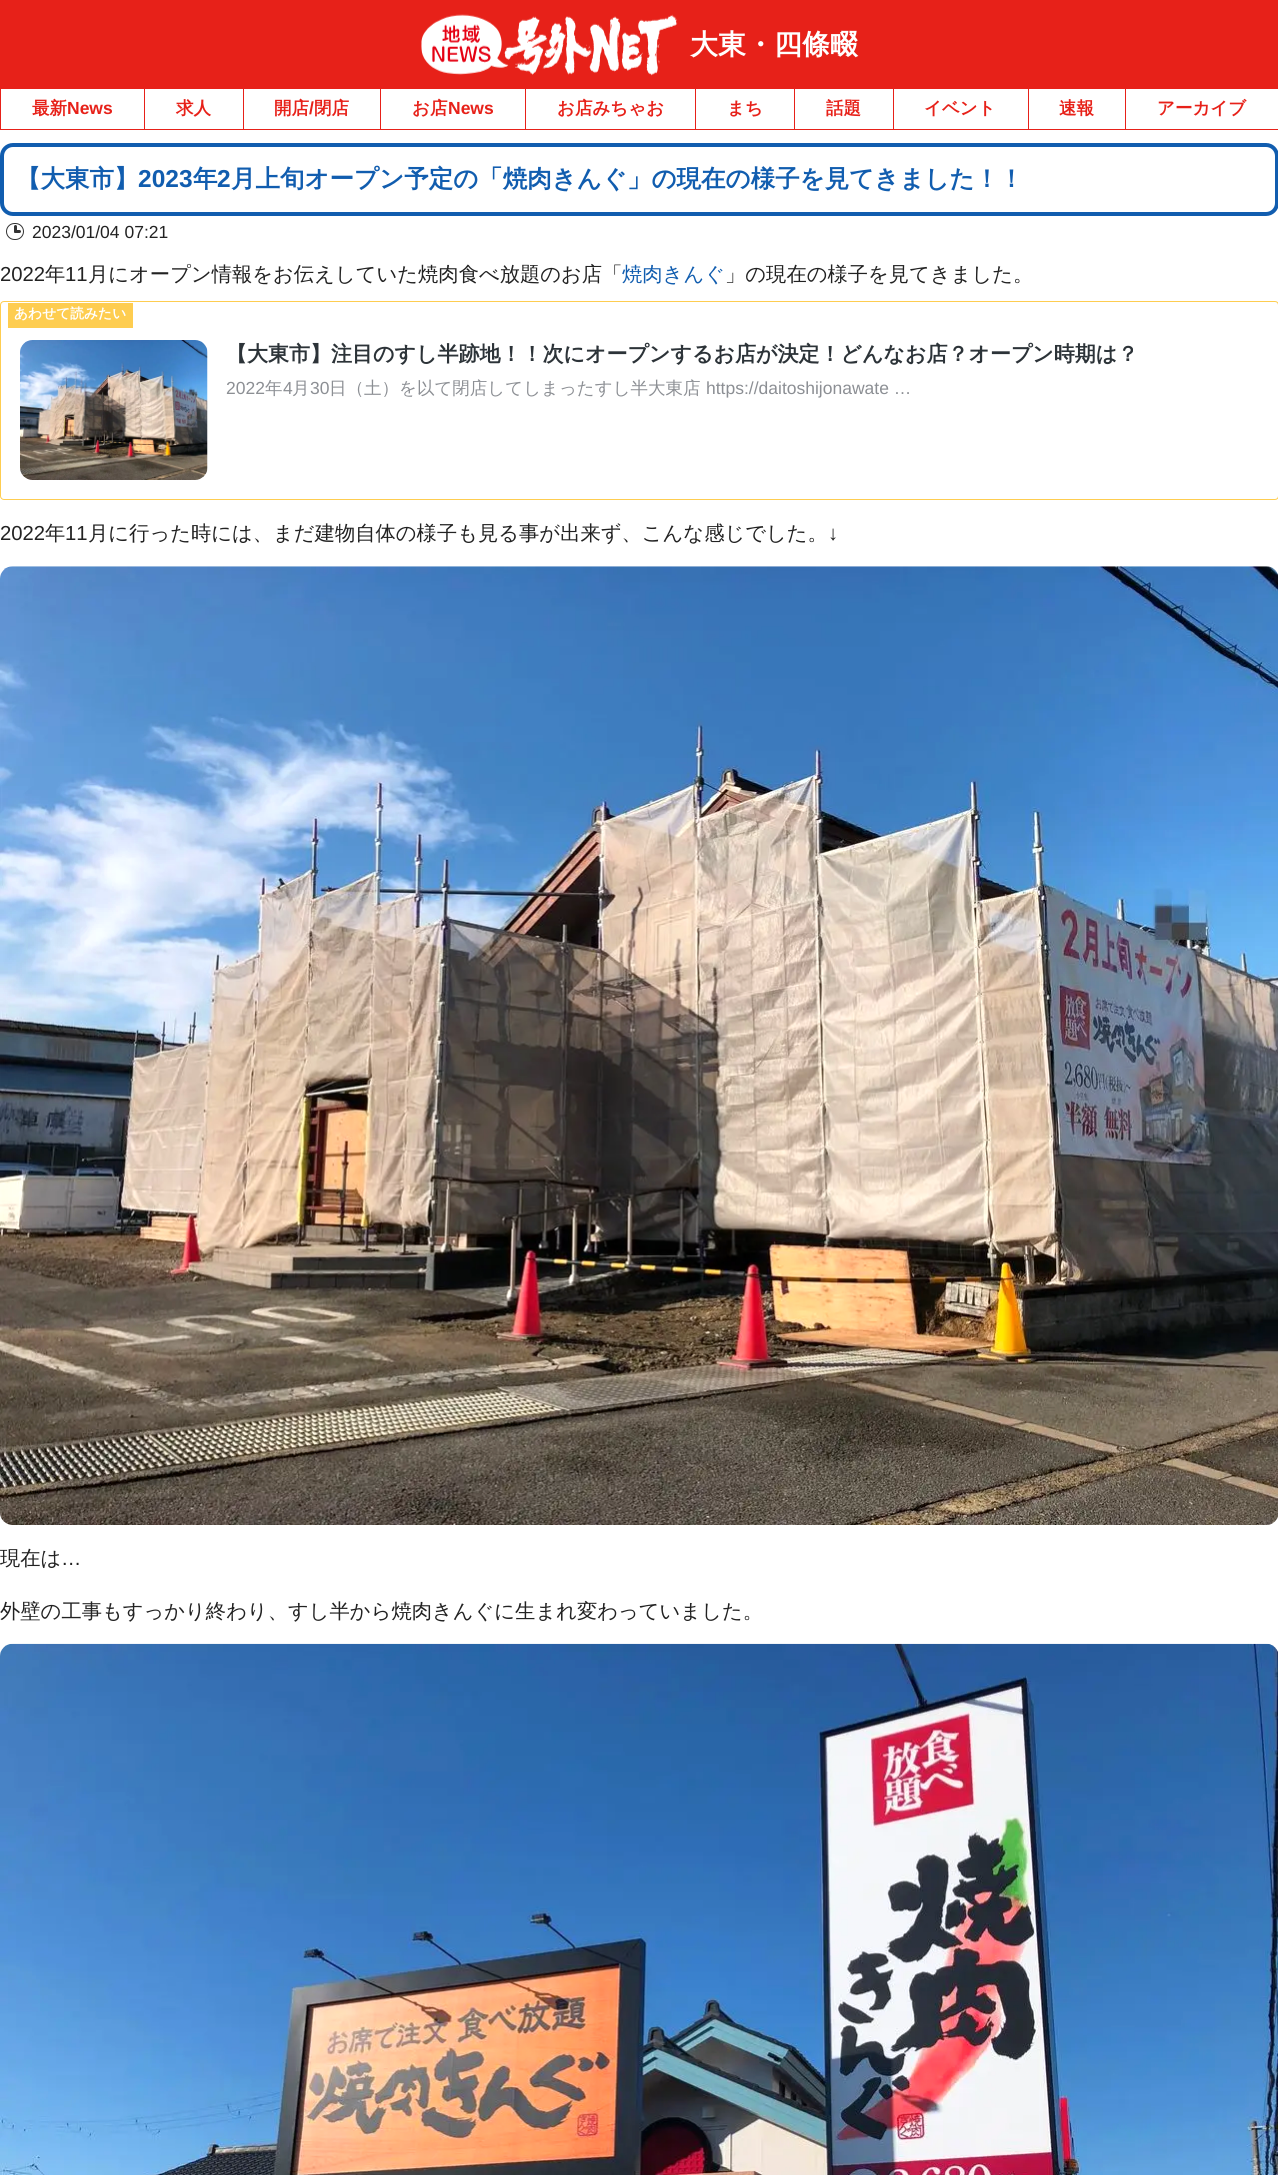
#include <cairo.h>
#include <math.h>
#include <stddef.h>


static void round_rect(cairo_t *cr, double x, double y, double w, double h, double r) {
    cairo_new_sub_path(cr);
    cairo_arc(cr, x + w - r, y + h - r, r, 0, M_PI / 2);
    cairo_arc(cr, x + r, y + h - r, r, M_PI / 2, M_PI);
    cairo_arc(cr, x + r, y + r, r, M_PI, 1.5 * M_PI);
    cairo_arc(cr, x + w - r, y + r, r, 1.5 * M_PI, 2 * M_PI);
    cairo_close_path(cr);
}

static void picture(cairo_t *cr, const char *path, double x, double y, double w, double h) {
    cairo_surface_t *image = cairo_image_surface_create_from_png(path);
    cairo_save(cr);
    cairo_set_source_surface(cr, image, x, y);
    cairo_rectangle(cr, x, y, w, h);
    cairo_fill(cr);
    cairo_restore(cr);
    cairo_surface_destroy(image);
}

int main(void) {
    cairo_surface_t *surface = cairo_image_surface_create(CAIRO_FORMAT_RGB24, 1278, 2175);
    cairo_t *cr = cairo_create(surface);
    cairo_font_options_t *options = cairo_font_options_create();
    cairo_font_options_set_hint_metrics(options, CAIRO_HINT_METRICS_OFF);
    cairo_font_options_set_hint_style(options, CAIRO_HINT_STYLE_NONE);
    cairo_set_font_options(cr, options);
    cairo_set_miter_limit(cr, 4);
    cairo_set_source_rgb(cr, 1, 1, 1);
    cairo_paint(cr);
    cairo_set_source_rgb(cr, 0.906, 0.129, 0.098);
    cairo_rectangle(cr, 0, 0, 1278, 89);
    cairo_fill(cr);
    picture(cr, "img1.png", 421, 14, 257, 62);
    cairo_select_font_face(cr, "WenQuanYi Zen Hei", CAIRO_FONT_SLANT_NORMAL, CAIRO_FONT_WEIGHT_BOLD);
    cairo_set_font_size(cr, 28);
    cairo_set_source_rgb(cr, 1, 1, 1);
    cairo_move_to(cr, 690, 54);
    cairo_show_text(cr, "大東・四條畷");
    cairo_set_source_rgb(cr, 0.906, 0.129, 0.098);
    cairo_rectangle(cr, 0, 129, 1278, 1);
    cairo_fill(cr);
    cairo_rectangle(cr, 144, 89, 1, 40);
    cairo_fill(cr);
    cairo_rectangle(cr, 0, 89, 1, 40);
    cairo_fill(cr);
    cairo_set_font_size(cr, 17.5);
    cairo_move_to(cr, 32, 114);
    cairo_show_text(cr, "最新");
    cairo_select_font_face(cr, "Liberation Sans", CAIRO_FONT_SLANT_NORMAL, CAIRO_FONT_WEIGHT_BOLD);
    cairo_move_to(cr, 67, 114);
    cairo_show_text(cr, "News");
    cairo_rectangle(cr, 243, 89, 1, 40);
    cairo_fill(cr);
    cairo_select_font_face(cr, "WenQuanYi Zen Hei", CAIRO_FONT_SLANT_NORMAL, CAIRO_FONT_WEIGHT_BOLD);
    cairo_move_to(cr, 176, 114);
    cairo_show_text(cr, "求人");
    cairo_rectangle(cr, 380, 89, 1, 40);
    cairo_fill(cr);
    cairo_move_to(cr, 274, 114);
    cairo_show_text(cr, "開店");
    cairo_select_font_face(cr, "Liberation Sans", CAIRO_FONT_SLANT_NORMAL, CAIRO_FONT_WEIGHT_BOLD);
    cairo_move_to(cr, 309, 114);
    cairo_show_text(cr, "/");
    cairo_select_font_face(cr, "WenQuanYi Zen Hei", CAIRO_FONT_SLANT_NORMAL, CAIRO_FONT_WEIGHT_BOLD);
    cairo_move_to(cr, 314, 114);
    cairo_show_text(cr, "閉店");
    cairo_rectangle(cr, 525, 89, 1, 40);
    cairo_fill(cr);
    cairo_move_to(cr, 412, 114);
    cairo_show_text(cr, "お店");
    cairo_select_font_face(cr, "Liberation Sans", CAIRO_FONT_SLANT_NORMAL, CAIRO_FONT_WEIGHT_BOLD);
    cairo_move_to(cr, 448, 114);
    cairo_show_text(cr, "News");
    cairo_rectangle(cr, 695, 89, 1, 40);
    cairo_fill(cr);
    cairo_select_font_face(cr, "WenQuanYi Zen Hei", CAIRO_FONT_SLANT_NORMAL, CAIRO_FONT_WEIGHT_BOLD);
    cairo_move_to(cr, 557, 114);
    cairo_show_text(cr, "お店みちゃお");
    cairo_rectangle(cr, 794, 89, 1, 40);
    cairo_fill(cr);
    cairo_move_to(cr, 727, 114);
    cairo_show_text(cr, "まち");
    cairo_rectangle(cr, 893, 89, 1, 40);
    cairo_fill(cr);
    cairo_move_to(cr, 826, 114);
    cairo_show_text(cr, "話題");
    cairo_rectangle(cr, 1028, 89, 1, 40);
    cairo_fill(cr);
    cairo_move_to(cr, 924, 114);
    cairo_show_text(cr, "イベント");
    cairo_rectangle(cr, 1125, 89, 1, 40);
    cairo_fill(cr);
    cairo_move_to(cr, 1059, 114);
    cairo_show_text(cr, "速報");
    cairo_move_to(cr, 1157, 114);
    cairo_show_text(cr, "アーカイブ");
    round_rect(cr, 2, 145, 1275, 69, 11);
    cairo_set_source_rgb(cr, 0.067, 0.365, 0.686);
    cairo_set_line_width(cr, 4);
    cairo_stroke(cr);
    cairo_set_font_size(cr, 24.5);
    cairo_move_to(cr, 16, 187);
    cairo_show_text(cr, "【大東市】");
    cairo_select_font_face(cr, "Liberation Sans", CAIRO_FONT_SLANT_NORMAL, CAIRO_FONT_WEIGHT_BOLD);
    cairo_move_to(cr, 138, 187);
    cairo_show_text(cr, "2023");
    cairo_select_font_face(cr, "WenQuanYi Zen Hei", CAIRO_FONT_SLANT_NORMAL, CAIRO_FONT_WEIGHT_BOLD);
    cairo_move_to(cr, 193, 187);
    cairo_show_text(cr, "年");
    cairo_select_font_face(cr, "Liberation Sans", CAIRO_FONT_SLANT_NORMAL, CAIRO_FONT_WEIGHT_BOLD);
    cairo_move_to(cr, 217, 187);
    cairo_show_text(cr, "2");
    cairo_select_font_face(cr, "WenQuanYi Zen Hei", CAIRO_FONT_SLANT_NORMAL, CAIRO_FONT_WEIGHT_BOLD);
    cairo_move_to(cr, 231, 187);
    cairo_show_text(cr, "月上旬オープン予定の「焼肉きんぐ」の現在の様子を見てきました！！");
    round_rect(cr, 6.5, 223.5, 17, 16, 8);
    cairo_set_source_rgb(cr, 0.2, 0.2, 0.2);
    cairo_set_line_width(cr, 1);
    cairo_stroke(cr);
    round_rect(cr, 14, 225, 3, 8, 1.5);
    cairo_fill(cr);
    round_rect(cr, 14, 230, 7, 3, 1.5);
    cairo_fill(cr);
    cairo_select_font_face(cr, "Liberation Sans", CAIRO_FONT_SLANT_NORMAL, CAIRO_FONT_WEIGHT_NORMAL);
    cairo_set_font_size(cr, 17.5);
    cairo_set_source_rgb(cr, 0.133, 0.133, 0.133);
    cairo_move_to(cr, 32, 238);
    cairo_show_text(cr, "2023/01/04 07:21");
    cairo_set_font_size(cr, 20.3);
    cairo_move_to(cr, 0, 281);
    cairo_show_text(cr, "2022");
    cairo_select_font_face(cr, "WenQuanYi Zen Hei Medium", CAIRO_FONT_SLANT_NORMAL, CAIRO_FONT_WEIGHT_NORMAL);
    cairo_move_to(cr, 45, 281);
    cairo_show_text(cr, "年");
    cairo_select_font_face(cr, "Liberation Sans", CAIRO_FONT_SLANT_NORMAL, CAIRO_FONT_WEIGHT_NORMAL);
    cairo_move_to(cr, 65, 281);
    cairo_show_text(cr, "11");
    cairo_select_font_face(cr, "WenQuanYi Zen Hei Medium", CAIRO_FONT_SLANT_NORMAL, CAIRO_FONT_WEIGHT_NORMAL);
    cairo_move_to(cr, 88, 281);
    cairo_show_text(cr, "月にオープン情報をお伝えしていた焼肉食べ放題のお店「");
    cairo_set_source_rgb(cr, 0.067, 0.365, 0.686);
    cairo_move_to(cr, 622, 281);
    cairo_show_text(cr, "焼肉きんぐ");
    cairo_set_source_rgb(cr, 0.133, 0.133, 0.133);
    cairo_move_to(cr, 725, 281);
    cairo_show_text(cr, "」の現在の様子を見てきました。");
    round_rect(cr, 0.5, 301.5, 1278, 198, 3.5);
    cairo_set_source_rgb(cr, 0.996, 0.804, 0.314);
    cairo_stroke(cr);
    cairo_rectangle(cr, 8, 303, 125, 25);
    cairo_fill(cr);
    cairo_select_font_face(cr, "WenQuanYi Zen Hei", CAIRO_FONT_SLANT_NORMAL, CAIRO_FONT_WEIGHT_BOLD);
    cairo_set_font_size(cr, 13.75);
    cairo_set_source_rgb(cr, 1, 1, 1);
    cairo_move_to(cr, 14, 318);
    cairo_show_text(cr, "あわせて読みたい");
    picture(cr, "img2.png", 20, 340, 188, 140);
    cairo_set_font_size(cr, 21);
    cairo_set_source_rgb(cr, 0.173, 0.2, 0.22);
    cairo_move_to(cr, 226, 361);
    cairo_show_text(cr, "【大東市】注目のすし半跡地！！次にオープンするお店が決定！どんなお店？オープン時期は？");
    cairo_select_font_face(cr, "Liberation Sans", CAIRO_FONT_SLANT_NORMAL, CAIRO_FONT_WEIGHT_NORMAL);
    cairo_set_font_size(cr, 17.5);
    cairo_set_source_rgb(cr, 0.549, 0.561, 0.58);
    cairo_move_to(cr, 226, 394);
    cairo_show_text(cr, "2022");
    cairo_select_font_face(cr, "WenQuanYi Zen Hei Medium", CAIRO_FONT_SLANT_NORMAL, CAIRO_FONT_WEIGHT_NORMAL);
    cairo_move_to(cr, 265, 394);
    cairo_show_text(cr, "年");
    cairo_select_font_face(cr, "Liberation Sans", CAIRO_FONT_SLANT_NORMAL, CAIRO_FONT_WEIGHT_NORMAL);
    cairo_move_to(cr, 283, 394);
    cairo_show_text(cr, "4");
    cairo_select_font_face(cr, "WenQuanYi Zen Hei Medium", CAIRO_FONT_SLANT_NORMAL, CAIRO_FONT_WEIGHT_NORMAL);
    cairo_move_to(cr, 292, 394);
    cairo_show_text(cr, "月");
    cairo_select_font_face(cr, "Liberation Sans", CAIRO_FONT_SLANT_NORMAL, CAIRO_FONT_WEIGHT_NORMAL);
    cairo_move_to(cr, 310, 394);
    cairo_show_text(cr, "30");
    cairo_select_font_face(cr, "WenQuanYi Zen Hei Medium", CAIRO_FONT_SLANT_NORMAL, CAIRO_FONT_WEIGHT_NORMAL);
    cairo_move_to(cr, 329, 394);
    cairo_show_text(cr, "日（土）を以て閉店してしまったすし半大東店");
    cairo_select_font_face(cr, "Liberation Sans", CAIRO_FONT_SLANT_NORMAL, CAIRO_FONT_WEIGHT_NORMAL);
    cairo_move_to(cr, 706, 394);
    cairo_show_text(cr, "https://daitoshijonawate …");
    cairo_set_font_size(cr, 20.3);
    cairo_set_source_rgb(cr, 0.133, 0.133, 0.133);
    cairo_move_to(cr, 0, 540);
    cairo_show_text(cr, "2022");
    cairo_select_font_face(cr, "WenQuanYi Zen Hei Medium", CAIRO_FONT_SLANT_NORMAL, CAIRO_FONT_WEIGHT_NORMAL);
    cairo_move_to(cr, 45, 540);
    cairo_show_text(cr, "年");
    cairo_select_font_face(cr, "Liberation Sans", CAIRO_FONT_SLANT_NORMAL, CAIRO_FONT_WEIGHT_NORMAL);
    cairo_move_to(cr, 65, 540);
    cairo_show_text(cr, "11");
    cairo_select_font_face(cr, "WenQuanYi Zen Hei Medium", CAIRO_FONT_SLANT_NORMAL, CAIRO_FONT_WEIGHT_NORMAL);
    cairo_move_to(cr, 88, 540);
    cairo_show_text(cr, "月に行った時には、まだ建物自体の様子も見る事が出来ず、こんな感じでした。");
    cairo_select_font_face(cr, "Liberation Sans", CAIRO_FONT_SLANT_NORMAL, CAIRO_FONT_WEIGHT_NORMAL);
    cairo_move_to(cr, 828, 540);
    cairo_show_text(cr, "↓");
    picture(cr, "img3.png", 0, 566, 1278, 959);
    cairo_select_font_face(cr, "WenQuanYi Zen Hei Medium", CAIRO_FONT_SLANT_NORMAL, CAIRO_FONT_WEIGHT_NORMAL);
    cairo_move_to(cr, 0, 1565);
    cairo_show_text(cr, "現在は");
    cairo_select_font_face(cr, "Liberation Sans", CAIRO_FONT_SLANT_NORMAL, CAIRO_FONT_WEIGHT_NORMAL);
    cairo_move_to(cr, 61, 1565);
    cairo_show_text(cr, "…");
    cairo_select_font_face(cr, "WenQuanYi Zen Hei Medium", CAIRO_FONT_SLANT_NORMAL, CAIRO_FONT_WEIGHT_NORMAL);
    cairo_move_to(cr, 0, 1618);
    cairo_show_text(cr, "外壁の工事もすっかり終わり、すし半から焼肉きんぐに生まれ変わっていました。");
    picture(cr, "img4.png", 0, 1643, 1278, 532);
    cairo_surface_write_to_png(surface, "page.png");
    cairo_font_options_destroy(options);
    cairo_destroy(cr);
    cairo_surface_destroy(surface);
    return 0;
}
